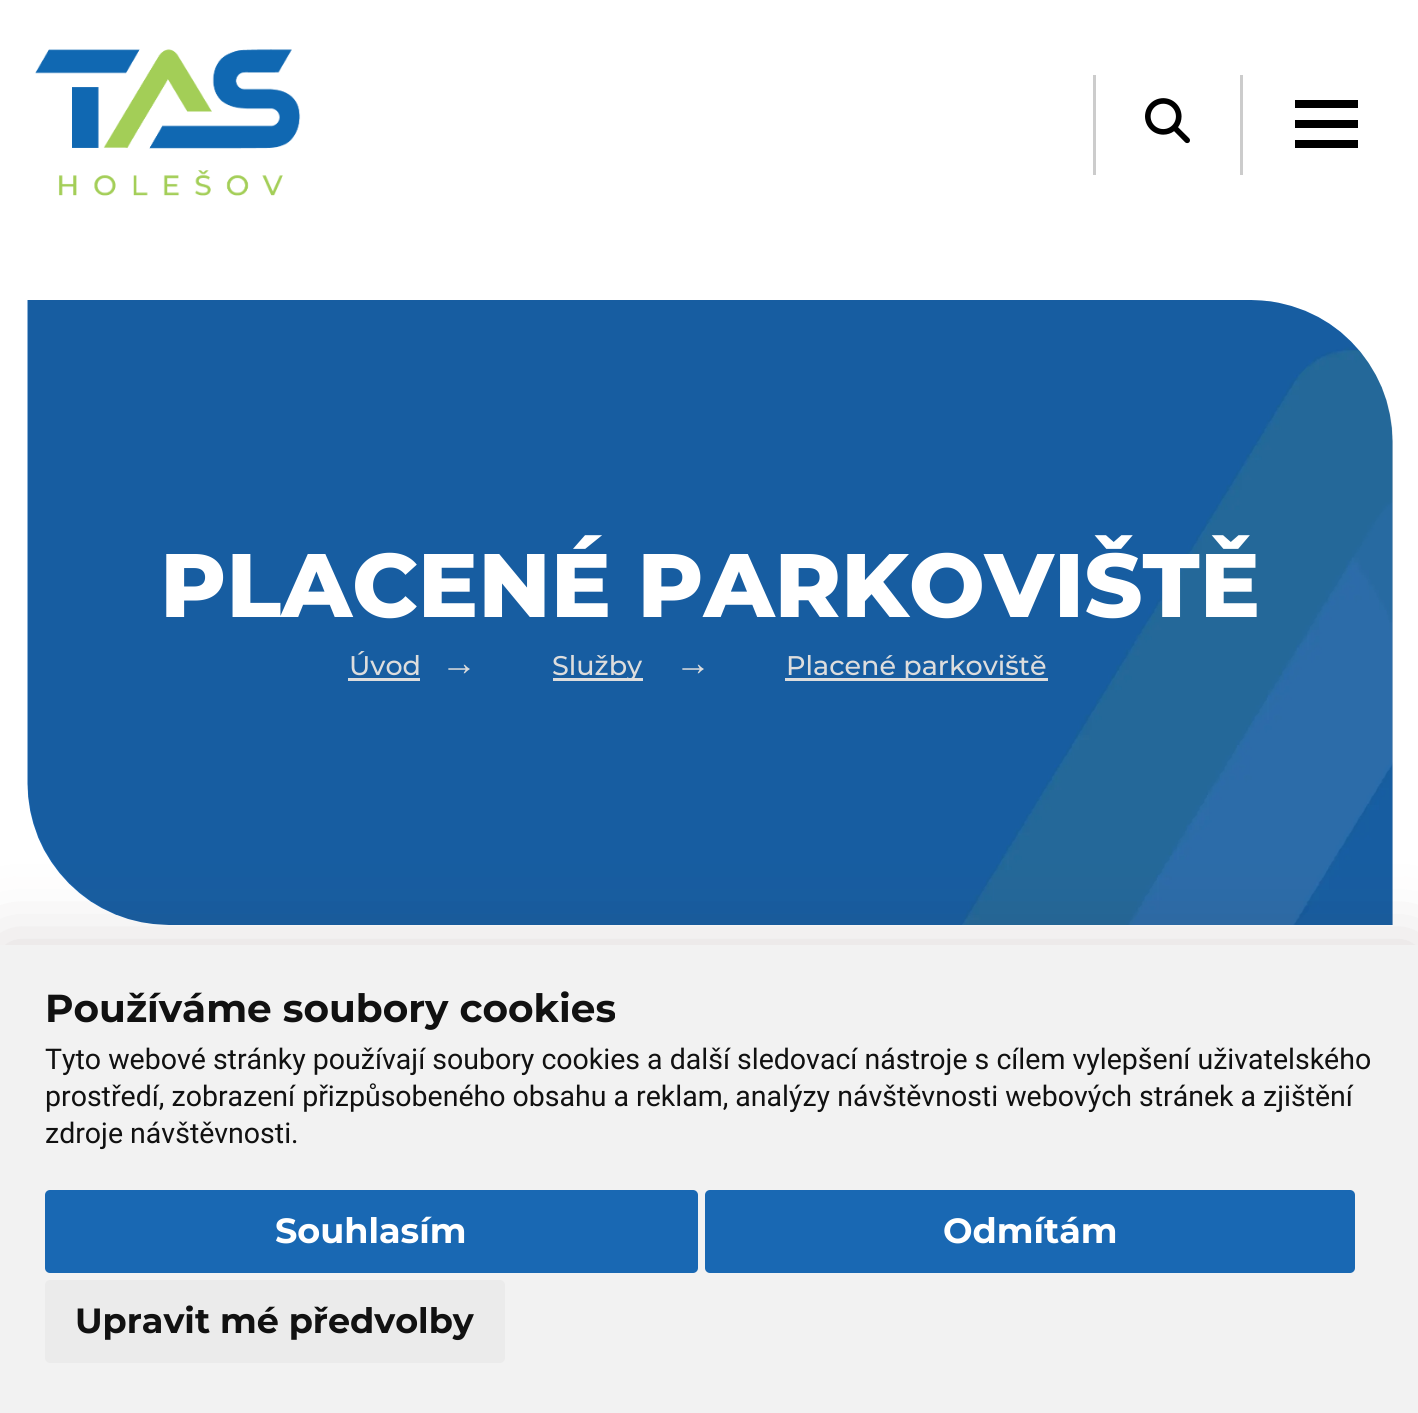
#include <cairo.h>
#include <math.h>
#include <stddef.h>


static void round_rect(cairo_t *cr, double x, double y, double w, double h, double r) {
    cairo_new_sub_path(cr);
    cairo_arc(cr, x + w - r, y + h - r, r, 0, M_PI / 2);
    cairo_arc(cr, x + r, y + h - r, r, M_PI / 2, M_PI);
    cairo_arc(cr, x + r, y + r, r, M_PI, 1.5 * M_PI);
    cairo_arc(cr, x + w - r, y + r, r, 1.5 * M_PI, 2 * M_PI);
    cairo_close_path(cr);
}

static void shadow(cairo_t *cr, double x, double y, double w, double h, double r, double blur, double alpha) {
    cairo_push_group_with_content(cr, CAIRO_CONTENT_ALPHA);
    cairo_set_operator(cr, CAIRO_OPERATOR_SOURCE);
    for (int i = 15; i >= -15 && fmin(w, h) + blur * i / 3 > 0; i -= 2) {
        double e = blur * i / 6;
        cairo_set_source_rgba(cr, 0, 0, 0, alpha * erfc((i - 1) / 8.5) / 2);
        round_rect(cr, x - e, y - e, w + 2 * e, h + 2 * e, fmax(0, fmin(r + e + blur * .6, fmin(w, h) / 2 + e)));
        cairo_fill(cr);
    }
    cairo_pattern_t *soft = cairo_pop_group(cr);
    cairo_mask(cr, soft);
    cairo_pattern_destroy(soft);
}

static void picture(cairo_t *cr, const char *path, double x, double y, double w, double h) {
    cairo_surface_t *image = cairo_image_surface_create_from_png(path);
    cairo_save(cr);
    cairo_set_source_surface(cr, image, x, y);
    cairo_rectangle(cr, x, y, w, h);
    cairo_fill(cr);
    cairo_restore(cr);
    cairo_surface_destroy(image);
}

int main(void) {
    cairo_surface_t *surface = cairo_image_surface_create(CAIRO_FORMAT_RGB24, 1418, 1413);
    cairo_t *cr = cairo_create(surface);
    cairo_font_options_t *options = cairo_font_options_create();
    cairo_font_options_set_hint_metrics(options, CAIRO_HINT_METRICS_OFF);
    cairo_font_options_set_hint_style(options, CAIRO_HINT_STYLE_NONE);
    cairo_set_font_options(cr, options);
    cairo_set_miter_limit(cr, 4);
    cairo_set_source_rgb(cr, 1, 1, 1);
    cairo_paint(cr);
    picture(cr, "img1.png", 35, 49, 266, 147);
    cairo_set_source_rgb(cr, 0.8, 0.8, 0.8);
    cairo_rectangle(cr, 1240, 75, 3, 100);
    cairo_fill(cr);
    cairo_rectangle(cr, 1093, 75, 3, 100);
    cairo_fill(cr);
    picture(cr, "img2.png", 1145, 98, 45, 46);
    cairo_set_source_rgb(cr, 0, 0, 0);
    cairo_rectangle(cr, 1295, 100, 63, 8);
    cairo_fill(cr);
    cairo_rectangle(cr, 1295, 120, 63, 8);
    cairo_fill(cr);
    cairo_rectangle(cr, 1295, 140, 63, 8);
    cairo_fill(cr);
    picture(cr, "img3.png", 27, 300, 1366, 625);
    cairo_set_source_rgba(cr, 0, 0, 0, 0.1);
    cairo_new_path(cr);
    cairo_move_to(cr, 28, 300);
    cairo_line_to(cr, 1250, 300);
    cairo_curve_to(cr, 1329, 300, 1393, 364, 1393, 443);
    cairo_line_to(cr, 1393, 925);
    cairo_line_to(cr, 171, 925);
    cairo_curve_to(cr, 92, 925, 28, 861, 28, 782);
    cairo_close_path(cr);
    cairo_fill(cr);
    cairo_select_font_face(cr, "Montserrat ExtraBold", CAIRO_FONT_SLANT_NORMAL, CAIRO_FONT_WEIGHT_NORMAL);
    cairo_set_font_size(cr, 90);
    cairo_set_source_rgb(cr, 1, 1, 1);
    cairo_move_to(cr, 160, 617);
    cairo_show_text(cr, "PLACENÉ PARKOVIŠTĚ");
    cairo_select_font_face(cr, "Montserrat Medium", CAIRO_FONT_SLANT_NORMAL, CAIRO_FONT_WEIGHT_NORMAL);
    cairo_set_font_size(cr, 27);
    cairo_set_source_rgb(cr, 0.867, 0.867, 0.867);
    cairo_move_to(cr, 349, 675);
    cairo_show_text(cr, "Úvod");
    cairo_rectangle(cr, 348, 678, 72, 3);
    cairo_fill(cr);
    cairo_select_font_face(cr, "Liberation Sans", CAIRO_FONT_SLANT_NORMAL, CAIRO_FONT_WEIGHT_NORMAL);
    cairo_set_font_size(cr, 36);
    cairo_move_to(cr, 441, 675);
    cairo_show_text(cr, "→");
    cairo_rectangle(cr, 553, 678, 90, 3);
    cairo_fill(cr);
    cairo_select_font_face(cr, "Montserrat Medium", CAIRO_FONT_SLANT_NORMAL, CAIRO_FONT_WEIGHT_NORMAL);
    cairo_set_font_size(cr, 27);
    cairo_move_to(cr, 552, 675);
    cairo_show_text(cr, "Služby");
    cairo_select_font_face(cr, "Liberation Sans", CAIRO_FONT_SLANT_NORMAL, CAIRO_FONT_WEIGHT_NORMAL);
    cairo_set_font_size(cr, 36);
    cairo_move_to(cr, 675, 675);
    cairo_show_text(cr, "→");
    cairo_rectangle(cr, 785, 678, 263, 3);
    cairo_fill(cr);
    cairo_select_font_face(cr, "Montserrat Medium", CAIRO_FONT_SLANT_NORMAL, CAIRO_FONT_WEIGHT_NORMAL);
    cairo_set_font_size(cr, 27);
    cairo_move_to(cr, 786, 675);
    cairo_show_text(cr, "Placené parkoviště");
    cairo_set_source_rgb(cr, 0.267, 0.176, 0.176);
    shadow(cr, 0, 945, 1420, 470, 0, 37.5, 0.2);
    cairo_set_source_rgb(cr, 0.949, 0.949, 0.949);
    cairo_rectangle(cr, 0, 945, 1418, 468);
    cairo_fill(cr);
    cairo_select_font_face(cr, "Montserrat", CAIRO_FONT_SLANT_NORMAL, CAIRO_FONT_WEIGHT_BOLD);
    cairo_set_font_size(cr, 39);
    cairo_set_source_rgb(cr, 0.067, 0.067, 0.067);
    cairo_move_to(cr, 45, 1022);
    cairo_show_text(cr, "Používáme soubory cookies");
    cairo_select_font_face(cr, "Roboto", CAIRO_FONT_SLANT_NORMAL, CAIRO_FONT_WEIGHT_NORMAL);
    cairo_set_font_size(cr, 28.5);
    cairo_move_to(cr, 45, 1069);
    cairo_show_text(cr, "Tyto webové stránky používají soubory cookies a další sledovací nástroje s cílem vylepšení uživatelského");
    cairo_move_to(cr, 45, 1106);
    cairo_show_text(cr, "prostředí, zobrazení přizpůsobeného obsahu a");
    cairo_move_to(cr, 636, 1106);
    cairo_show_text(cr, "reklam, analýzy návštěvnosti webových stránek a zjištění");
    cairo_move_to(cr, 45, 1143);
    cairo_show_text(cr, "zdroje návštěvnosti.");
    cairo_set_source_rgb(cr, 0.098, 0.408, 0.702);
    round_rect(cr, 45, 1190, 653, 83, 5);
    cairo_fill(cr);
    cairo_select_font_face(cr, "Montserrat", CAIRO_FONT_SLANT_NORMAL, CAIRO_FONT_WEIGHT_BOLD);
    cairo_set_font_size(cr, 35);
    cairo_set_source_rgb(cr, 1, 1, 1);
    cairo_move_to(cr, 275, 1243);
    cairo_show_text(cr, "Souhlasím");
    cairo_set_source_rgb(cr, 0.098, 0.408, 0.702);
    round_rect(cr, 705, 1190, 650, 83, 5);
    cairo_fill(cr);
    cairo_set_source_rgb(cr, 1, 1, 1);
    cairo_move_to(cr, 943, 1243);
    cairo_show_text(cr, "Odmítám");
    cairo_set_source_rgb(cr, 0.918, 0.918, 0.918);
    round_rect(cr, 45, 1280, 460, 83, 5);
    cairo_fill(cr);
    cairo_set_source_rgb(cr, 0.067, 0.067, 0.067);
    cairo_move_to(cr, 75, 1333);
    cairo_show_text(cr, "Upravit mé předvolby");
    cairo_surface_write_to_png(surface, "page.png");
    cairo_font_options_destroy(options);
    cairo_destroy(cr);
    cairo_surface_destroy(surface);
    return 0;
}
